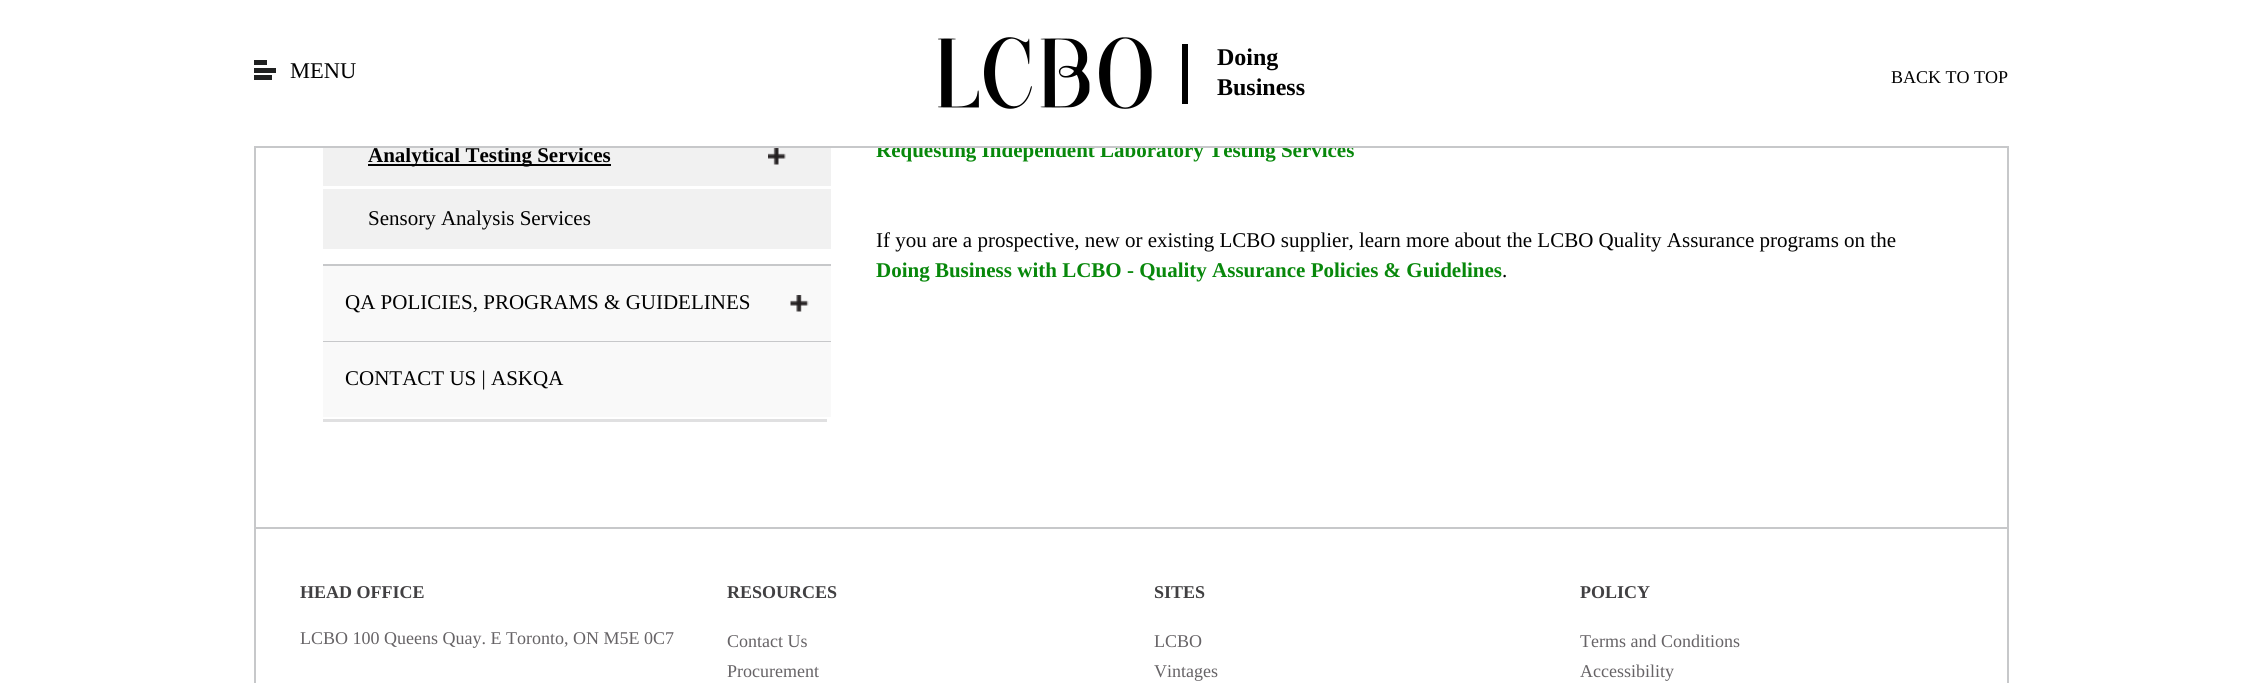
#include <cairo.h>
#include <math.h>
#include <stddef.h>


static void picture(cairo_t *cr, const char *path, double x, double y, double w, double h) {
    cairo_surface_t *image = cairo_image_surface_create_from_png(path);
    cairo_save(cr);
    cairo_set_source_surface(cr, image, x, y);
    cairo_rectangle(cr, x, y, w, h);
    cairo_fill(cr);
    cairo_restore(cr);
    cairo_surface_destroy(image);
}

int main(void) {
    cairo_surface_t *surface = cairo_image_surface_create(CAIRO_FORMAT_RGB24, 2262, 683);
    cairo_t *cr = cairo_create(surface);
    cairo_font_options_t *options = cairo_font_options_create();
    cairo_font_options_set_hint_metrics(options, CAIRO_HINT_METRICS_OFF);
    cairo_font_options_set_hint_style(options, CAIRO_HINT_STYLE_NONE);
    cairo_set_font_options(cr, options);
    cairo_set_miter_limit(cr, 4);
    cairo_set_source_rgb(cr, 1, 1, 1);
    cairo_paint(cr);
    cairo_select_font_face(cr, "Liberation Serif", CAIRO_FONT_SLANT_NORMAL, CAIRO_FONT_WEIGHT_BOLD);
    cairo_set_font_size(cr, 21);
    cairo_set_source_rgb(cr, 0.035, 0.533, 0.043);
    cairo_move_to(cr, 876, 157);
    cairo_show_text(cr, "Requesting Independent Laboratory Testing Services");
    cairo_set_source_rgb(cr, 1, 1, 1);
    cairo_rectangle(cr, 876, 142, 451, 5);
    cairo_fill(cr);
    cairo_set_source_rgb(cr, 0.125, 0.129, 0.129);
    cairo_rectangle(cr, 254, 60, 13, 5);
    cairo_fill(cr);
    cairo_rectangle(cr, 254, 68, 22, 5);
    cairo_fill(cr);
    cairo_rectangle(cr, 254, 75, 18, 5);
    cairo_fill(cr);
    cairo_select_font_face(cr, "Liberation Serif", CAIRO_FONT_SLANT_NORMAL, CAIRO_FONT_WEIGHT_NORMAL);
    cairo_set_font_size(cr, 22.5);
    cairo_set_source_rgb(cr, 0.004, 0.004, 0.004);
    cairo_move_to(cr, 290, 78);
    cairo_show_text(cr, "MENU");
    picture(cr, "img1.png", 938, 37, 214, 72);
    cairo_set_source_rgb(cr, 0, 0, 0);
    cairo_rectangle(cr, 1182, 44, 6, 60);
    cairo_fill(cr);
    cairo_select_font_face(cr, "Liberation Serif", CAIRO_FONT_SLANT_NORMAL, CAIRO_FONT_WEIGHT_BOLD);
    cairo_set_font_size(cr, 24);
    cairo_set_source_rgb(cr, 0.004, 0.004, 0.004);
    cairo_move_to(cr, 1217, 65);
    cairo_show_text(cr, "Doing");
    cairo_move_to(cr, 1217, 95);
    cairo_show_text(cr, "Business");
    cairo_select_font_face(cr, "Liberation Serif", CAIRO_FONT_SLANT_NORMAL, CAIRO_FONT_WEIGHT_NORMAL);
    cairo_set_font_size(cr, 18);
    cairo_move_to(cr, 1891, 83);
    cairo_show_text(cr, "BACK TO TOP");
    cairo_set_source_rgb(cr, 0.945, 0.945, 0.945);
    cairo_rectangle(cr, 323, 148, 508, 38);
    cairo_fill(cr);
    cairo_set_source_rgb(cr, 0.004, 0.004, 0.004);
    cairo_rectangle(cr, 368, 164, 243, 2);
    cairo_fill(cr);
    cairo_select_font_face(cr, "Liberation Serif", CAIRO_FONT_SLANT_NORMAL, CAIRO_FONT_WEIGHT_BOLD);
    cairo_set_font_size(cr, 21);
    cairo_move_to(cr, 368, 162);
    cairo_show_text(cr, "Analytical Testing Services");
    cairo_set_source_rgb(cr, 0.78, 0.784, 0.792);
    cairo_rectangle(cr, 254, 146, 1755, 2);
    cairo_fill(cr);
    cairo_rectangle(cr, 2007, 148, 2, 379);
    cairo_fill(cr);
    cairo_rectangle(cr, 254, 148, 2, 379);
    cairo_fill(cr);
    cairo_rectangle(cr, 323, 264, 508, 2);
    cairo_fill(cr);
    picture(cr, "img2.png", 768, 148, 18, 17);
    cairo_set_source_rgb(cr, 0.945, 0.945, 0.945);
    cairo_rectangle(cr, 323, 189, 508, 60);
    cairo_fill(cr);
    cairo_select_font_face(cr, "Liberation Serif", CAIRO_FONT_SLANT_NORMAL, CAIRO_FONT_WEIGHT_NORMAL);
    cairo_set_source_rgb(cr, 0.004, 0.004, 0.004);
    cairo_move_to(cr, 368, 225);
    cairo_show_text(cr, "Sensory Analysis Services");
    cairo_set_source_rgb(cr, 0.78, 0.784, 0.792);
    cairo_rectangle(cr, 323, 341, 508, 1);
    cairo_fill(cr);
    cairo_set_source_rgb(cr, 0.976, 0.976, 0.976);
    cairo_rectangle(cr, 323, 266, 508, 75);
    cairo_fill(cr);
    cairo_set_source_rgb(cr, 0.004, 0.004, 0.004);
    cairo_move_to(cr, 345, 309);
    cairo_show_text(cr, "QA POLICIES, PROGRAMS & GUIDELINES");
    picture(cr, "img3.png", 790, 295, 19, 17);
    cairo_set_source_rgb(cr, 0.976, 0.976, 0.976);
    cairo_rectangle(cr, 323, 342, 508, 75);
    cairo_fill(cr);
    cairo_set_source_rgb(cr, 0.004, 0.004, 0.004);
    cairo_move_to(cr, 345, 385);
    cairo_show_text(cr, "CONTACT US | ASKQA");
    cairo_set_source_rgb(cr, 0.878, 0.878, 0.882);
    cairo_rectangle(cr, 323, 419, 504, 3);
    cairo_fill(cr);
    cairo_set_source_rgb(cr, 0.004, 0.004, 0.004);
    cairo_move_to(cr, 876, 247);
    cairo_show_text(cr, "If you are a prospective, new or existing LCBO supplier, learn more about the LCBO Quality Assurance programs on the");
    cairo_select_font_face(cr, "Liberation Serif", CAIRO_FONT_SLANT_NORMAL, CAIRO_FONT_WEIGHT_BOLD);
    cairo_set_source_rgb(cr, 0.035, 0.533, 0.043);
    cairo_move_to(cr, 876, 277);
    cairo_show_text(cr, "Doing Business with LCBO - Quality Assurance Policies & Guidelines");
    cairo_select_font_face(cr, "Liberation Serif", CAIRO_FONT_SLANT_NORMAL, CAIRO_FONT_WEIGHT_NORMAL);
    cairo_set_source_rgb(cr, 0.004, 0.004, 0.004);
    cairo_move_to(cr, 1502, 277);
    cairo_show_text(cr, ".");
    cairo_rectangle(cr, 255, 528, 1753, 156);
    cairo_set_source_rgb(cr, 0.78, 0.784, 0.792);
    cairo_stroke(cr);
    cairo_select_font_face(cr, "Liberation Serif", CAIRO_FONT_SLANT_NORMAL, CAIRO_FONT_WEIGHT_BOLD);
    cairo_set_font_size(cr, 18);
    cairo_set_source_rgb(cr, 0.255, 0.251, 0.259);
    cairo_move_to(cr, 300, 598);
    cairo_show_text(cr, "HEAD OFFICE");
    cairo_select_font_face(cr, "Liberation Serif", CAIRO_FONT_SLANT_NORMAL, CAIRO_FONT_WEIGHT_NORMAL);
    cairo_set_source_rgb(cr, 0.4, 0.388, 0.4);
    cairo_move_to(cr, 300, 644);
    cairo_show_text(cr, "LCBO 100 Queens Quay. E Toronto, ON M5E 0C7");
    cairo_select_font_face(cr, "Liberation Serif", CAIRO_FONT_SLANT_NORMAL, CAIRO_FONT_WEIGHT_BOLD);
    cairo_set_source_rgb(cr, 0.255, 0.251, 0.259);
    cairo_move_to(cr, 727, 598);
    cairo_show_text(cr, "RESOURCES");
    cairo_select_font_face(cr, "Liberation Serif", CAIRO_FONT_SLANT_NORMAL, CAIRO_FONT_WEIGHT_NORMAL);
    cairo_set_source_rgb(cr, 0.4, 0.388, 0.4);
    cairo_move_to(cr, 727, 647);
    cairo_show_text(cr, "Contact Us");
    cairo_move_to(cr, 727, 677);
    cairo_show_text(cr, "Procurement");
    cairo_select_font_face(cr, "Liberation Serif", CAIRO_FONT_SLANT_NORMAL, CAIRO_FONT_WEIGHT_BOLD);
    cairo_set_source_rgb(cr, 0.255, 0.251, 0.259);
    cairo_move_to(cr, 1154, 598);
    cairo_show_text(cr, "SITES");
    cairo_select_font_face(cr, "Liberation Serif", CAIRO_FONT_SLANT_NORMAL, CAIRO_FONT_WEIGHT_NORMAL);
    cairo_set_source_rgb(cr, 0.4, 0.388, 0.4);
    cairo_move_to(cr, 1154, 647);
    cairo_show_text(cr, "LCBO");
    cairo_move_to(cr, 1154, 677);
    cairo_show_text(cr, "Vintages");
    cairo_select_font_face(cr, "Liberation Serif", CAIRO_FONT_SLANT_NORMAL, CAIRO_FONT_WEIGHT_BOLD);
    cairo_set_source_rgb(cr, 0.255, 0.251, 0.259);
    cairo_move_to(cr, 1580, 598);
    cairo_show_text(cr, "POLICY");
    cairo_select_font_face(cr, "Liberation Serif", CAIRO_FONT_SLANT_NORMAL, CAIRO_FONT_WEIGHT_NORMAL);
    cairo_set_source_rgb(cr, 0.4, 0.388, 0.4);
    cairo_move_to(cr, 1580, 647);
    cairo_show_text(cr, "Terms and Conditions");
    cairo_move_to(cr, 1580, 677);
    cairo_show_text(cr, "Accessibility");
    cairo_surface_write_to_png(surface, "page.png");
    cairo_font_options_destroy(options);
    cairo_destroy(cr);
    cairo_surface_destroy(surface);
    return 0;
}
